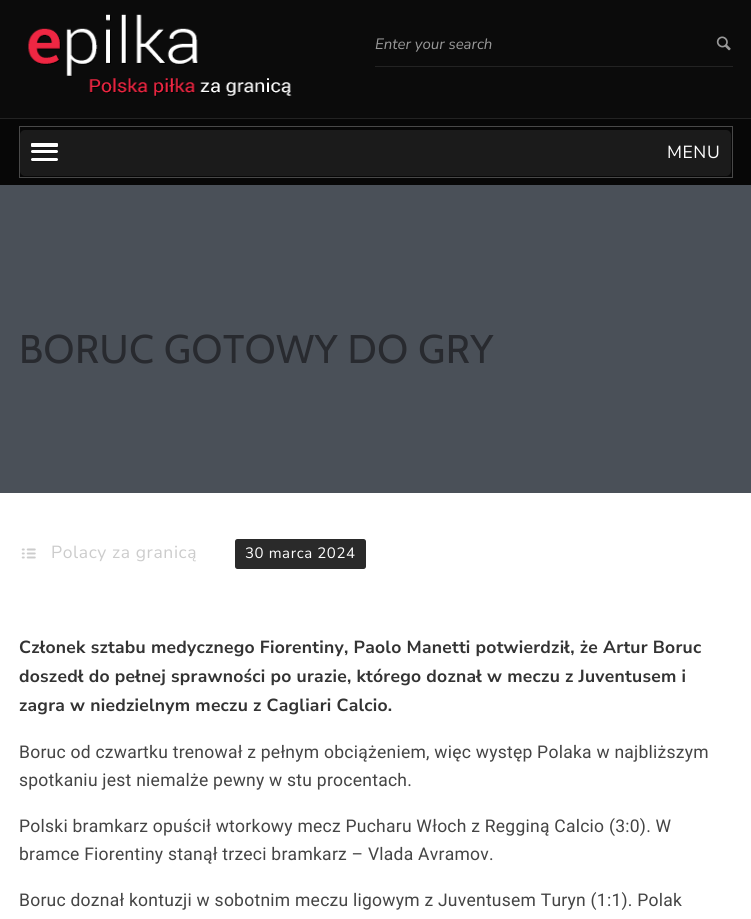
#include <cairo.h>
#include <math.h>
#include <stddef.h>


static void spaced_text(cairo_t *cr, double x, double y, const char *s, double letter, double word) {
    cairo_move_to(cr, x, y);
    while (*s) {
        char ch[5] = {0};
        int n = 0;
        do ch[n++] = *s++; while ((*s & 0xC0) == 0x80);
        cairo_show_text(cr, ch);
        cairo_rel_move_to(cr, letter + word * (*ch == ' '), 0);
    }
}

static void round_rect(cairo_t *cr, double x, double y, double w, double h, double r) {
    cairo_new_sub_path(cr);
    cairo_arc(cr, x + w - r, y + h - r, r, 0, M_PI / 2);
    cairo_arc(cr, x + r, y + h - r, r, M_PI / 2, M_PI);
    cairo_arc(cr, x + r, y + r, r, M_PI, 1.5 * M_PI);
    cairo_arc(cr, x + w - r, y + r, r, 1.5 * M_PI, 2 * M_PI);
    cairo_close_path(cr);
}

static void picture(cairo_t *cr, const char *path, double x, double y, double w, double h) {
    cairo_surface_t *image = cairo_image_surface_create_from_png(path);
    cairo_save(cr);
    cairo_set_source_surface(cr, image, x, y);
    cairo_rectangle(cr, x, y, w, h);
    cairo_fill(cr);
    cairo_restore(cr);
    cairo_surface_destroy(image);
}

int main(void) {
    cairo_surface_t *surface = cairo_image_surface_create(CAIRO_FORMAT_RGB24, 751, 919);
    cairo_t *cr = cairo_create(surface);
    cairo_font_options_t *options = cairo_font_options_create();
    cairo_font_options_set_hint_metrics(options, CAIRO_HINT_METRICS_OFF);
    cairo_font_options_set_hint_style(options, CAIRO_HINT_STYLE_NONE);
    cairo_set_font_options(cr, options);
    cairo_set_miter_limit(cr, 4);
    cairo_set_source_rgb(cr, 1, 1, 1);
    cairo_paint(cr);
    cairo_set_source_rgb(cr, 0.043, 0.043, 0.043);
    cairo_rectangle(cr, 0, 0, 751, 118);
    cairo_fill(cr);
    cairo_set_source_rgb(cr, 0.137, 0.137, 0.137);
    cairo_rectangle(cr, 0, 118, 751, 1);
    cairo_fill(cr);
    picture(cr, "img1.png", 28, 14, 264, 83);
    cairo_rectangle(cr, 375, 66, 358, 1);
    cairo_fill(cr);
    cairo_select_font_face(cr, "Nunito Sans", CAIRO_FONT_SLANT_ITALIC, CAIRO_FONT_WEIGHT_NORMAL);
    cairo_set_font_size(cr, 15);
    cairo_set_source_rgb(cr, 0.6, 0.6, 0.6);
    cairo_move_to(cr, 375, 49);
    cairo_show_text(cr, "Enter your search");
    picture(cr, "img2.png", 716, 36, 15, 15);
    cairo_set_source_rgb(cr, 0.031, 0.031, 0.031);
    cairo_rectangle(cr, 0, 119, 751, 66);
    cairo_fill(cr);
    cairo_rectangle(cr, 19.5, 126.5, 713, 51);
    cairo_set_source_rgb(cr, 0.286, 0.286, 0.286);
    cairo_set_line_width(cr, 1);
    cairo_stroke(cr);
    cairo_set_source_rgb(cr, 0.106, 0.106, 0.106);
    round_rect(cr, 20, 130, 711, 46, 5);
    cairo_fill(cr);
    cairo_set_source_rgb(cr, 0.078, 0.078, 0.078);
    cairo_new_path(cr);
    cairo_move_to(cr, 31, 144.5);
    cairo_line_to(cr, 31, 146);
    cairo_curve_to(cr, 31, 149, 33, 148, 36, 148);
    cairo_line_to(cr, 57.5, 148);
    cairo_curve_to(cr, 58.5, 147.5, 58.5, 144.5, 57.5, 144);
    cairo_curve_to(cr, 57.5, 147, 55, 146, 52.5, 146);
    cairo_line_to(cr, 36.5, 146);
    cairo_curve_to(cr, 34, 146, 31, 147, 31, 144.5);
    cairo_close_path(cr);
    cairo_fill(cr);
    cairo_set_source_rgb(cr, 1, 1, 1);
    round_rect(cr, 31, 143, 27, 4, 1);
    cairo_fill(cr);
    cairo_set_source_rgb(cr, 0.078, 0.078, 0.078);
    cairo_new_path(cr);
    cairo_move_to(cr, 31.5, 151.5);
    cairo_line_to(cr, 31, 153);
    cairo_curve_to(cr, 31.5, 155, 36, 154, 36.5, 154);
    cairo_line_to(cr, 56.5, 154);
    cairo_curve_to(cr, 58, 154, 58.5, 152.5, 57.5, 151.5);
    cairo_curve_to(cr, 57.5, 152, 57, 152.5, 56, 152.5);
    cairo_line_to(cr, 32.5, 152.5);
    cairo_curve_to(cr, 32, 152.5, 31.5, 152, 31.5, 151.5);
    cairo_close_path(cr);
    cairo_fill(cr);
    cairo_set_source_rgb(cr, 1, 1, 1);
    round_rect(cr, 31, 150, 27, 3, 1.5);
    cairo_fill(cr);
    cairo_set_source_rgb(cr, 0.078, 0.078, 0.078);
    cairo_new_path(cr);
    cairo_move_to(cr, 31.5, 159.5);
    cairo_line_to(cr, 31, 161);
    cairo_curve_to(cr, 31.5, 163, 36, 162, 36.5, 162);
    cairo_line_to(cr, 57, 162);
    cairo_curve_to(cr, 58, 161.5, 58.5, 160, 57.5, 159.5);
    cairo_line_to(cr, 57, 159.5);
    cairo_curve_to(cr, 56.5, 160, 32.5, 160.5, 32, 160);
    cairo_close_path(cr);
    cairo_fill(cr);
    cairo_set_source_rgb(cr, 1, 1, 1);
    round_rect(cr, 31, 158, 27, 3, 1.5);
    cairo_fill(cr);
    cairo_select_font_face(cr, "Nunito Sans", CAIRO_FONT_SLANT_NORMAL, CAIRO_FONT_WEIGHT_NORMAL);
    cairo_set_font_size(cr, 17.5);
    spaced_text(cr, 667, 158, "MENU", 0.6, 0);
    cairo_set_source_rgb(cr, 0.29, 0.314, 0.345);
    cairo_rectangle(cr, 0, 185, 751, 308);
    cairo_fill(cr);
    cairo_select_font_face(cr, "Cabin", CAIRO_FONT_SLANT_NORMAL, CAIRO_FONT_WEIGHT_NORMAL);
    cairo_set_font_size(cr, 40);
    cairo_set_source_rgb(cr, 0.157, 0.165, 0.184);
    spaced_text(cr, 19, 363, "BORUC GOTOWY DO GRY", 0.6, 0);
    picture(cr, "img3.png", 21, 548, 15, 11);
    cairo_select_font_face(cr, "Nunito Sans", CAIRO_FONT_SLANT_NORMAL, CAIRO_FONT_WEIGHT_NORMAL);
    cairo_set_font_size(cr, 17.5);
    cairo_set_source_rgb(cr, 0.8, 0.8, 0.8);
    spaced_text(cr, 51, 558, "Polacy za granicą", 0.6, 0);
    cairo_set_source_rgb(cr, 0.165, 0.165, 0.165);
    round_rect(cr, 235, 539, 131, 30, 2.5);
    cairo_fill(cr);
    cairo_set_font_size(cr, 15);
    cairo_set_source_rgb(cr, 1, 1, 1);
    spaced_text(cr, 245, 558, "30 marca 2024", 0.6, 0);
    cairo_select_font_face(cr, "Nunito Sans", CAIRO_FONT_SLANT_NORMAL, CAIRO_FONT_WEIGHT_BOLD);
    cairo_set_font_size(cr, 17.5);
    cairo_set_source_rgb(cr, 0.2, 0.2, 0.2);
    spaced_text(cr, 19, 653, "Członek sztabu medycznego Fiorentiny, Paolo Manetti potwierdził, że Artur Boruc", 0.25, 0);
    spaced_text(cr, 19, 682, "doszedł do pełnej sprawności po urazie, którego doznał w meczu z Juventusem i", 0.25, 0);
    spaced_text(cr, 19, 711, "zagra w niedzielnym meczu z Cagliari Calcio.", 0.25, 0);
    cairo_select_font_face(cr, "Roboto", CAIRO_FONT_SLANT_NORMAL, CAIRO_FONT_WEIGHT_NORMAL);
    cairo_set_source_rgb(cr, 0.267, 0.267, 0.267);
    spaced_text(cr, 19, 758, "Boruc od czwartku trenował z pełnym obciążeniem, więc występ Polaka w najbliższym", 0.25, 0);
    spaced_text(cr, 19, 786, "spotkaniu jest niemalże pewny w stu procentach.", 0.25, 0);
    spaced_text(cr, 19, 832, "Polski bramkarz opuścił wtorkowy mecz Pucharu Włoch z Regginą Calcio (3:0). W", 0.25, 0);
    spaced_text(cr, 19, 860, "bramce Fiorentiny stanął trzeci bramkarz – Vlada Avramov.", 0.25, 0);
    spaced_text(cr, 19, 906, "Boruc doznał kontuzji w sobotnim meczu ligowym z Juventusem Turyn (1:1). Polak", 0.25, 0);
    cairo_surface_write_to_png(surface, "page.png");
    cairo_font_options_destroy(options);
    cairo_destroy(cr);
    cairo_surface_destroy(surface);
    return 0;
}
